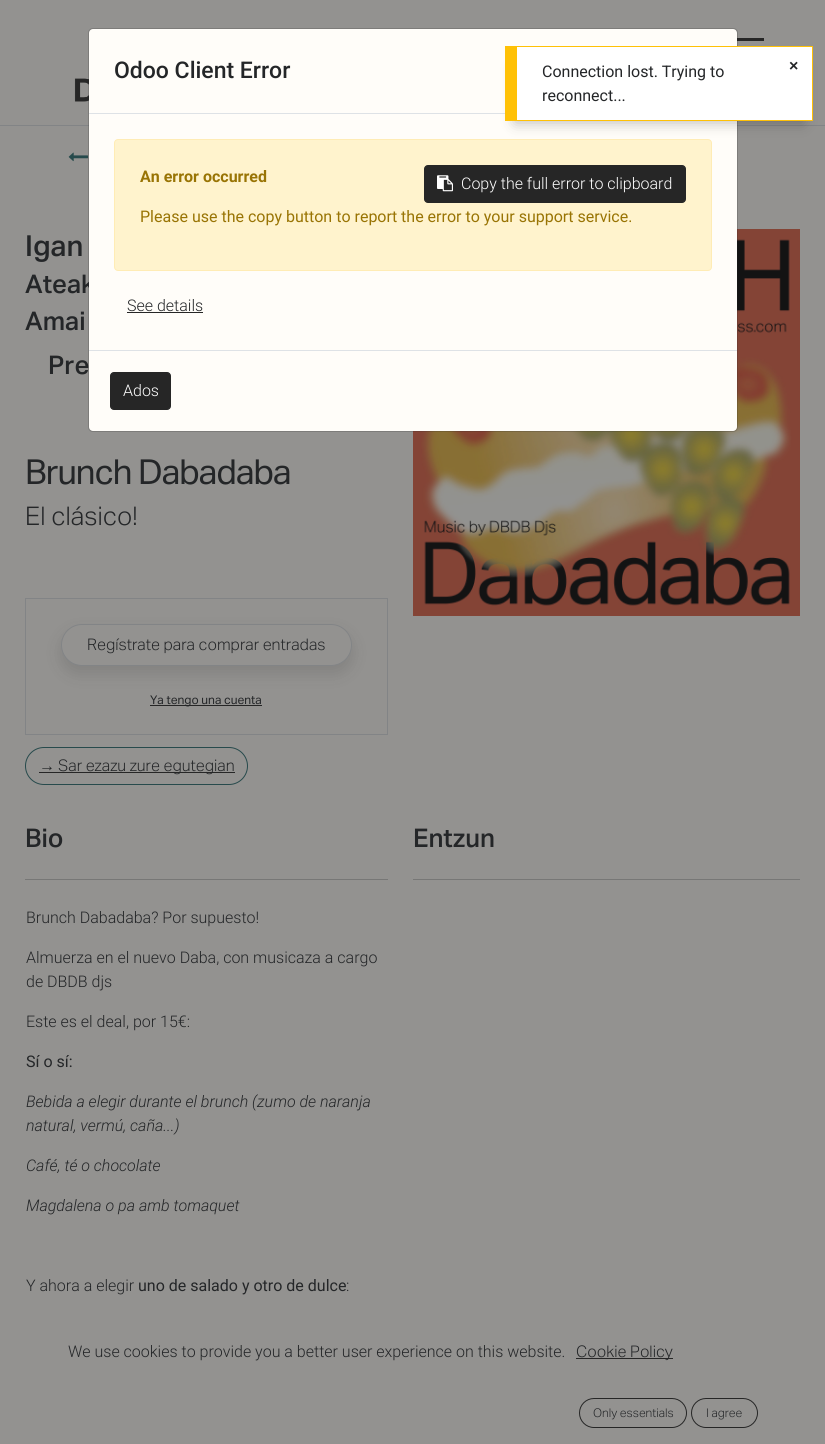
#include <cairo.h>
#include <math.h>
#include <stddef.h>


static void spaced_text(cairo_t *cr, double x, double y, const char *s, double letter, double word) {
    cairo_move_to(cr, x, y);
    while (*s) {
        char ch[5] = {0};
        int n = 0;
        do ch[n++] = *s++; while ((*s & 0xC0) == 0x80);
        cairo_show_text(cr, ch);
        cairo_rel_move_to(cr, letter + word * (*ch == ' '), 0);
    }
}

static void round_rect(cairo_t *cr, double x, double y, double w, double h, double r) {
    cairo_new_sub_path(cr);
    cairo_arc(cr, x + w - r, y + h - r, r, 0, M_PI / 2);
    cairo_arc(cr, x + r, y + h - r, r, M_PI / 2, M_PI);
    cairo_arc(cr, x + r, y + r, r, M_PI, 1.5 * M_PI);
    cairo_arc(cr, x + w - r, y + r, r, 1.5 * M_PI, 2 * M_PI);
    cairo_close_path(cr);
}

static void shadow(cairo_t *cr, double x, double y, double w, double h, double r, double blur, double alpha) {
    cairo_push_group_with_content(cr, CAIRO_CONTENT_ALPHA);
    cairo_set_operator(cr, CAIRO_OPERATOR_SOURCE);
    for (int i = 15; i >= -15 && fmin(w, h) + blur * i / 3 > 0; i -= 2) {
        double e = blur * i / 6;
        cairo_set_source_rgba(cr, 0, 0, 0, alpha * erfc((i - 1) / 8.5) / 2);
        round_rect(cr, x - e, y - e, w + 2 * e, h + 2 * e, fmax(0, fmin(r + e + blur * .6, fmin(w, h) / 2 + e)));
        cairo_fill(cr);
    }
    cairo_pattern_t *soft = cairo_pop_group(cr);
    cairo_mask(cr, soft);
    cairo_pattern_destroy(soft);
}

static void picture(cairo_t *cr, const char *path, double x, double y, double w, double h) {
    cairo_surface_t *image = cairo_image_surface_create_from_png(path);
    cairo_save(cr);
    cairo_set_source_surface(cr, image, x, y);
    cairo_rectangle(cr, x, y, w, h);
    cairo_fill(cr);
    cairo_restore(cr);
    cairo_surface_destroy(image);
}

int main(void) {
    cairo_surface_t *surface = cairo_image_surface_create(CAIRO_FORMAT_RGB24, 825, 1444);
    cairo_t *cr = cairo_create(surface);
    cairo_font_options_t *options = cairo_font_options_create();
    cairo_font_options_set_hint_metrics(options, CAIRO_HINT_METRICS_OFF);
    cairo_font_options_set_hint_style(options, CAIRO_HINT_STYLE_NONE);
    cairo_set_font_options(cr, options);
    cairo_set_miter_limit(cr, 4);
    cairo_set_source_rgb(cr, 0.576, 0.573, 0.565);
    cairo_paint(cr);
    cairo_set_source_rgb(cr, 0.51, 0.518, 0.525);
    cairo_rectangle(cr, 0, 125, 825, 1);
    cairo_fill(cr);
    cairo_select_font_face(cr, "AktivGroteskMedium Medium", CAIRO_FONT_SLANT_NORMAL, CAIRO_FONT_WEIGHT_NORMAL);
    cairo_set_font_size(cr, 25.75);
    cairo_set_source_rgb(cr, 0.141, 0.149, 0.157);
    cairo_move_to(cr, 25, 293);
    cairo_show_text(cr, "Ateak");
    picture(cr, "img4.png", 413, 229, 387, 387);
    cairo_set_source_rgb(cr, 1, 0.992, 0.976);
    round_rect(cr, 89, 29, 648, 402, 4);
    cairo_fill(cr);
    cairo_set_source_rgb(cr, 0.149, 0.149, 0.149);
    cairo_rectangle(cr, 737, 38, 27, 3);
    cairo_fill(cr);
    picture(cr, "img2.png", 74, 78, 15, 24);
    cairo_set_source_rgb(cr, 0.141, 0.149, 0.157);
    cairo_move_to(cr, 48, 374);
    cairo_show_text(cr, "Pre");
    round_rect(cr, 88.5, 28.5, 649, 403, 4.5);
    cairo_set_source_rgba(cr, 0.149, 0.149, 0.149, 0.2);
    cairo_set_line_width(cr, 1);
    cairo_stroke(cr);
    cairo_set_source_rgb(cr, 0.871, 0.886, 0.902);
    cairo_rectangle(cr, 89, 113, 416, 1);
    cairo_fill(cr);
    cairo_select_font_face(cr, "Roboto Medium", CAIRO_FONT_SLANT_NORMAL, CAIRO_FONT_WEIGHT_NORMAL);
    cairo_set_font_size(cr, 23);
    cairo_set_source_rgb(cr, 0.141, 0.149, 0.157);
    cairo_move_to(cr, 114, 78);
    cairo_show_text(cr, "Odoo Client Error");
    cairo_set_source_rgb(cr, 1, 0.953, 0.804);
    round_rect(cr, 114.5, 139.5, 597, 131, 3.5);
    cairo_fill_preserve(cr);
    cairo_set_source_rgb(cr, 1, 0.925, 0.71);
    cairo_stroke(cr);
    cairo_select_font_face(cr, "Roboto", CAIRO_FONT_SLANT_NORMAL, CAIRO_FONT_WEIGHT_BOLD);
    cairo_set_font_size(cr, 16);
    cairo_set_source_rgb(cr, 0.6, 0.455, 0.016);
    cairo_move_to(cr, 140, 182);
    cairo_show_text(cr, "An error occurred");
    cairo_set_source_rgb(cr, 0.149, 0.149, 0.149);
    round_rect(cr, 424.5, 165.5, 261, 37, 3.5);
    cairo_fill_preserve(cr);
    cairo_stroke(cr);
    picture(cr, "img1.png", 437, 175, 16, 17);
    cairo_select_font_face(cr, "Roboto Light", CAIRO_FONT_SLANT_NORMAL, CAIRO_FONT_WEIGHT_NORMAL);
    cairo_set_source_rgb(cr, 1, 1, 1);
    cairo_move_to(cr, 461, 189);
    cairo_show_text(cr, "Copy the full error to clipboard");
    cairo_select_font_face(cr, "Roboto", CAIRO_FONT_SLANT_NORMAL, CAIRO_FONT_WEIGHT_NORMAL);
    cairo_set_source_rgb(cr, 0.6, 0.455, 0.016);
    cairo_move_to(cr, 140, 222);
    cairo_show_text(cr, "Please use the copy button to report the error to your support service.");
    cairo_select_font_face(cr, "Roboto Light", CAIRO_FONT_SLANT_NORMAL, CAIRO_FONT_WEIGHT_NORMAL);
    cairo_set_source_rgb(cr, 0.141, 0.149, 0.157);
    cairo_move_to(cr, 127, 311);
    cairo_show_text(cr, "See details");
    cairo_set_source_rgb(cr, 0.149, 0.149, 0.149);
    cairo_rectangle(cr, 127, 312, 76, 1);
    cairo_fill(cr);
    cairo_set_source_rgb(cr, 0.871, 0.886, 0.902);
    cairo_rectangle(cr, 89, 350, 648, 1);
    cairo_fill(cr);
    cairo_set_source_rgb(cr, 0.149, 0.149, 0.149);
    round_rect(cr, 110.5, 372.5, 60, 37, 3.5);
    cairo_fill_preserve(cr);
    cairo_stroke(cr);
    cairo_set_source_rgb(cr, 1, 1, 1);
    cairo_move_to(cr, 123, 396);
    cairo_show_text(cr, "Ados");
    cairo_set_source_rgb(cr, 0, 0, 0);
    shadow(cr, 515, 68, 288, 55, 0, 7, 0.25);
    cairo_set_source_rgb(cr, 1, 1, 1);
    cairo_rectangle(cr, 517, 47, 295, 73);
    cairo_fill(cr);
    cairo_set_source_rgb(cr, 1, 0.757, 0.027);
    cairo_rectangle(cr, 517, 46, 296, 1);
    cairo_fill(cr);
    cairo_rectangle(cr, 812, 46, 1, 75);
    cairo_fill(cr);
    cairo_rectangle(cr, 517, 120, 296, 1);
    cairo_fill(cr);
    cairo_rectangle(cr, 505, 46, 12, 75);
    cairo_fill(cr);
    cairo_select_font_face(cr, "Roboto", CAIRO_FONT_SLANT_NORMAL, CAIRO_FONT_WEIGHT_NORMAL);
    cairo_set_source_rgb(cr, 0.141, 0.149, 0.157);
    cairo_move_to(cr, 542, 77);
    cairo_show_text(cr, "Connection lost. Trying to");
    cairo_move_to(cr, 542, 101);
    cairo_show_text(cr, "reconnect...");
    cairo_select_font_face(cr, "Liberation Sans", CAIRO_FONT_SLANT_NORMAL, CAIRO_FONT_WEIGHT_BOLD);
    cairo_move_to(cr, 789, 71);
    cairo_show_text(cr, "×");
    picture(cr, "img3.png", 68, 152, 20, 10);
    cairo_select_font_face(cr, "AktivGroteskMedium Medium", CAIRO_FONT_SLANT_NORMAL, CAIRO_FONT_WEIGHT_NORMAL);
    cairo_set_font_size(cr, 29);
    cairo_move_to(cr, 25, 256);
    cairo_show_text(cr, "Igan");
    cairo_set_font_size(cr, 25.75);
    cairo_move_to(cr, 25, 330);
    cairo_show_text(cr, "Amai");
    cairo_select_font_face(cr, "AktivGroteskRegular", CAIRO_FONT_SLANT_NORMAL, CAIRO_FONT_WEIGHT_NORMAL);
    cairo_set_font_size(cr, 34.5);
    spaced_text(cr, 25, 484, "Brunch Dabadaba", -1, 0);
    cairo_select_font_face(cr, "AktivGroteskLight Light", CAIRO_FONT_SLANT_NORMAL, CAIRO_FONT_WEIGHT_NORMAL);
    cairo_set_font_size(cr, 25.75);
    cairo_move_to(cr, 25, 525);
    cairo_show_text(cr, "El clásico!");
    cairo_rectangle(cr, 25.5, 598.5, 362, 136);
    cairo_set_source_rgb(cr, 0.51, 0.518, 0.525);
    cairo_stroke(cr);
    cairo_set_source_rgb(cr, 0.149, 0.149, 0.149);
    shadow(cr, 61, 632, 291, 42, 21, 8, 0.15);
    cairo_set_source_rgb(cr, 0.576, 0.573, 0.565);
    round_rect(cr, 61.5, 624.5, 290, 41, 20.5);
    cairo_fill_preserve(cr);
    cairo_set_source_rgb(cr, 0.51, 0.518, 0.525);
    cairo_stroke(cr);
    cairo_set_font_size(cr, 16);
    cairo_set_source_rgb(cr, 0.141, 0.149, 0.157);
    cairo_move_to(cr, 87, 650);
    cairo_show_text(cr, "Regístrate para comprar entradas");
    cairo_set_source_rgb(cr, 0.149, 0.149, 0.149);
    cairo_rectangle(cr, 150, 705, 112, 1);
    cairo_fill(cr);
    cairo_select_font_face(cr, "AktivGroteskRegular", CAIRO_FONT_SLANT_NORMAL, CAIRO_FONT_WEIGHT_NORMAL);
    cairo_set_font_size(cr, 12);
    cairo_set_source_rgb(cr, 0.141, 0.149, 0.157);
    cairo_move_to(cr, 150, 704);
    cairo_show_text(cr, "Ya tengo una cuenta");
    round_rect(cr, 25.5, 747.5, 222, 37, 18.5);
    cairo_set_source_rgb(cr, 0.153, 0.29, 0.298);
    cairo_stroke(cr);
    cairo_select_font_face(cr, "Liberation Sans", CAIRO_FONT_SLANT_NORMAL, CAIRO_FONT_WEIGHT_NORMAL);
    cairo_set_font_size(cr, 16);
    cairo_set_source_rgb(cr, 0.141, 0.149, 0.157);
    cairo_move_to(cr, 39, 771);
    cairo_show_text(cr, "→");
    cairo_set_source_rgb(cr, 0.149, 0.149, 0.149);
    cairo_rectangle(cr, 39, 772, 196, 1);
    cairo_fill(cr);
    cairo_select_font_face(cr, "AktivGroteskLight Light", CAIRO_FONT_SLANT_NORMAL, CAIRO_FONT_WEIGHT_NORMAL);
    cairo_set_source_rgb(cr, 0.141, 0.149, 0.157);
    cairo_move_to(cr, 58, 771);
    cairo_show_text(cr, "Sar ezazu zure egutegian");
    cairo_select_font_face(cr, "AktivGroteskMedium Medium", CAIRO_FONT_SLANT_NORMAL, CAIRO_FONT_WEIGHT_NORMAL);
    cairo_set_font_size(cr, 25.75);
    cairo_move_to(cr, 25, 847);
    cairo_show_text(cr, "Bio");
    cairo_set_source_rgb(cr, 0.467, 0.467, 0.463);
    cairo_rectangle(cr, 25, 879, 363, 1);
    cairo_fill(cr);
    cairo_select_font_face(cr, "Roboto Light", CAIRO_FONT_SLANT_NORMAL, CAIRO_FONT_WEIGHT_NORMAL);
    cairo_set_font_size(cr, 16);
    cairo_set_source_rgb(cr, 0.141, 0.149, 0.157);
    cairo_move_to(cr, 26, 923);
    cairo_show_text(cr, "Brunch Dabadaba? Por supuesto!");
    cairo_move_to(cr, 26, 963);
    cairo_show_text(cr, "Almuerza en el nuevo Daba, con musicaza a cargo");
    cairo_move_to(cr, 26, 987);
    cairo_show_text(cr, "de DBDB djs");
    cairo_move_to(cr, 26, 1027);
    cairo_show_text(cr, "Este es el deal, por 15€:");
    cairo_select_font_face(cr, "Roboto", CAIRO_FONT_SLANT_NORMAL, CAIRO_FONT_WEIGHT_NORMAL);
    cairo_move_to(cr, 26, 1067);
    cairo_show_text(cr, "Sí o sí:");
    cairo_select_font_face(cr, "Roboto Light", CAIRO_FONT_SLANT_ITALIC, CAIRO_FONT_WEIGHT_NORMAL);
    cairo_move_to(cr, 26, 1107);
    cairo_show_text(cr, "Bebida a elegir durante el brunch (zumo de naranja");
    cairo_move_to(cr, 26, 1131);
    cairo_show_text(cr, "natural, vermú, caña...)");
    cairo_move_to(cr, 26, 1171);
    cairo_show_text(cr, "Café, té o chocolate");
    cairo_move_to(cr, 26, 1211);
    cairo_show_text(cr, "Magdalena o pa amb tomaquet");
    cairo_select_font_face(cr, "Roboto Light", CAIRO_FONT_SLANT_NORMAL, CAIRO_FONT_WEIGHT_NORMAL);
    cairo_move_to(cr, 26, 1291);
    cairo_show_text(cr, "Y ahora a elegir");
    cairo_select_font_face(cr, "Roboto", CAIRO_FONT_SLANT_NORMAL, CAIRO_FONT_WEIGHT_NORMAL);
    cairo_move_to(cr, 138, 1291);
    cairo_show_text(cr, "uno de salado y otro de dulce");
    cairo_select_font_face(cr, "Roboto Light", CAIRO_FONT_SLANT_NORMAL, CAIRO_FONT_WEIGHT_NORMAL);
    cairo_move_to(cr, 346, 1291);
    cairo_show_text(cr, ":");
    cairo_select_font_face(cr, "AktivGroteskMedium Medium", CAIRO_FONT_SLANT_NORMAL, CAIRO_FONT_WEIGHT_NORMAL);
    cairo_set_font_size(cr, 25.75);
    cairo_move_to(cr, 413, 847);
    cairo_show_text(cr, "Entzun");
    cairo_set_source_rgb(cr, 0.467, 0.467, 0.463);
    cairo_rectangle(cr, 413, 879, 387, 1);
    cairo_fill(cr);
    cairo_select_font_face(cr, "Roboto Light", CAIRO_FONT_SLANT_NORMAL, CAIRO_FONT_WEIGHT_NORMAL);
    cairo_set_font_size(cr, 16);
    cairo_set_source_rgb(cr, 0.141, 0.149, 0.157);
    cairo_move_to(cr, 68, 1357);
    cairo_show_text(cr, "We use cookies to provide you a better user experience on this website.");
    cairo_set_source_rgb(cr, 0.149, 0.149, 0.149);
    cairo_rectangle(cr, 576, 1358, 97, 1);
    cairo_fill(cr);
    cairo_select_font_face(cr, "AktivGroteskLight Light", CAIRO_FONT_SLANT_NORMAL, CAIRO_FONT_WEIGHT_NORMAL);
    cairo_set_source_rgb(cr, 0.141, 0.149, 0.157);
    cairo_move_to(cr, 576, 1357);
    cairo_show_text(cr, "Cookie Policy");
    round_rect(cr, 579.5, 1398.5, 107, 29, 14.5);
    cairo_set_source_rgb(cr, 0.149, 0.149, 0.149);
    cairo_stroke(cr);
    cairo_set_font_size(cr, 12);
    cairo_set_source_rgb(cr, 0.141, 0.149, 0.157);
    cairo_move_to(cr, 593, 1417);
    cairo_show_text(cr, "Only essentials");
    round_rect(cr, 691.5, 1398.5, 66, 29, 14.5);
    cairo_set_source_rgb(cr, 0.149, 0.149, 0.149);
    cairo_stroke(cr);
    cairo_set_source_rgb(cr, 0.141, 0.149, 0.157);
    cairo_move_to(cr, 706, 1417);
    cairo_show_text(cr, "I agree");
    cairo_surface_write_to_png(surface, "page.png");
    cairo_font_options_destroy(options);
    cairo_destroy(cr);
    cairo_surface_destroy(surface);
    return 0;
}
